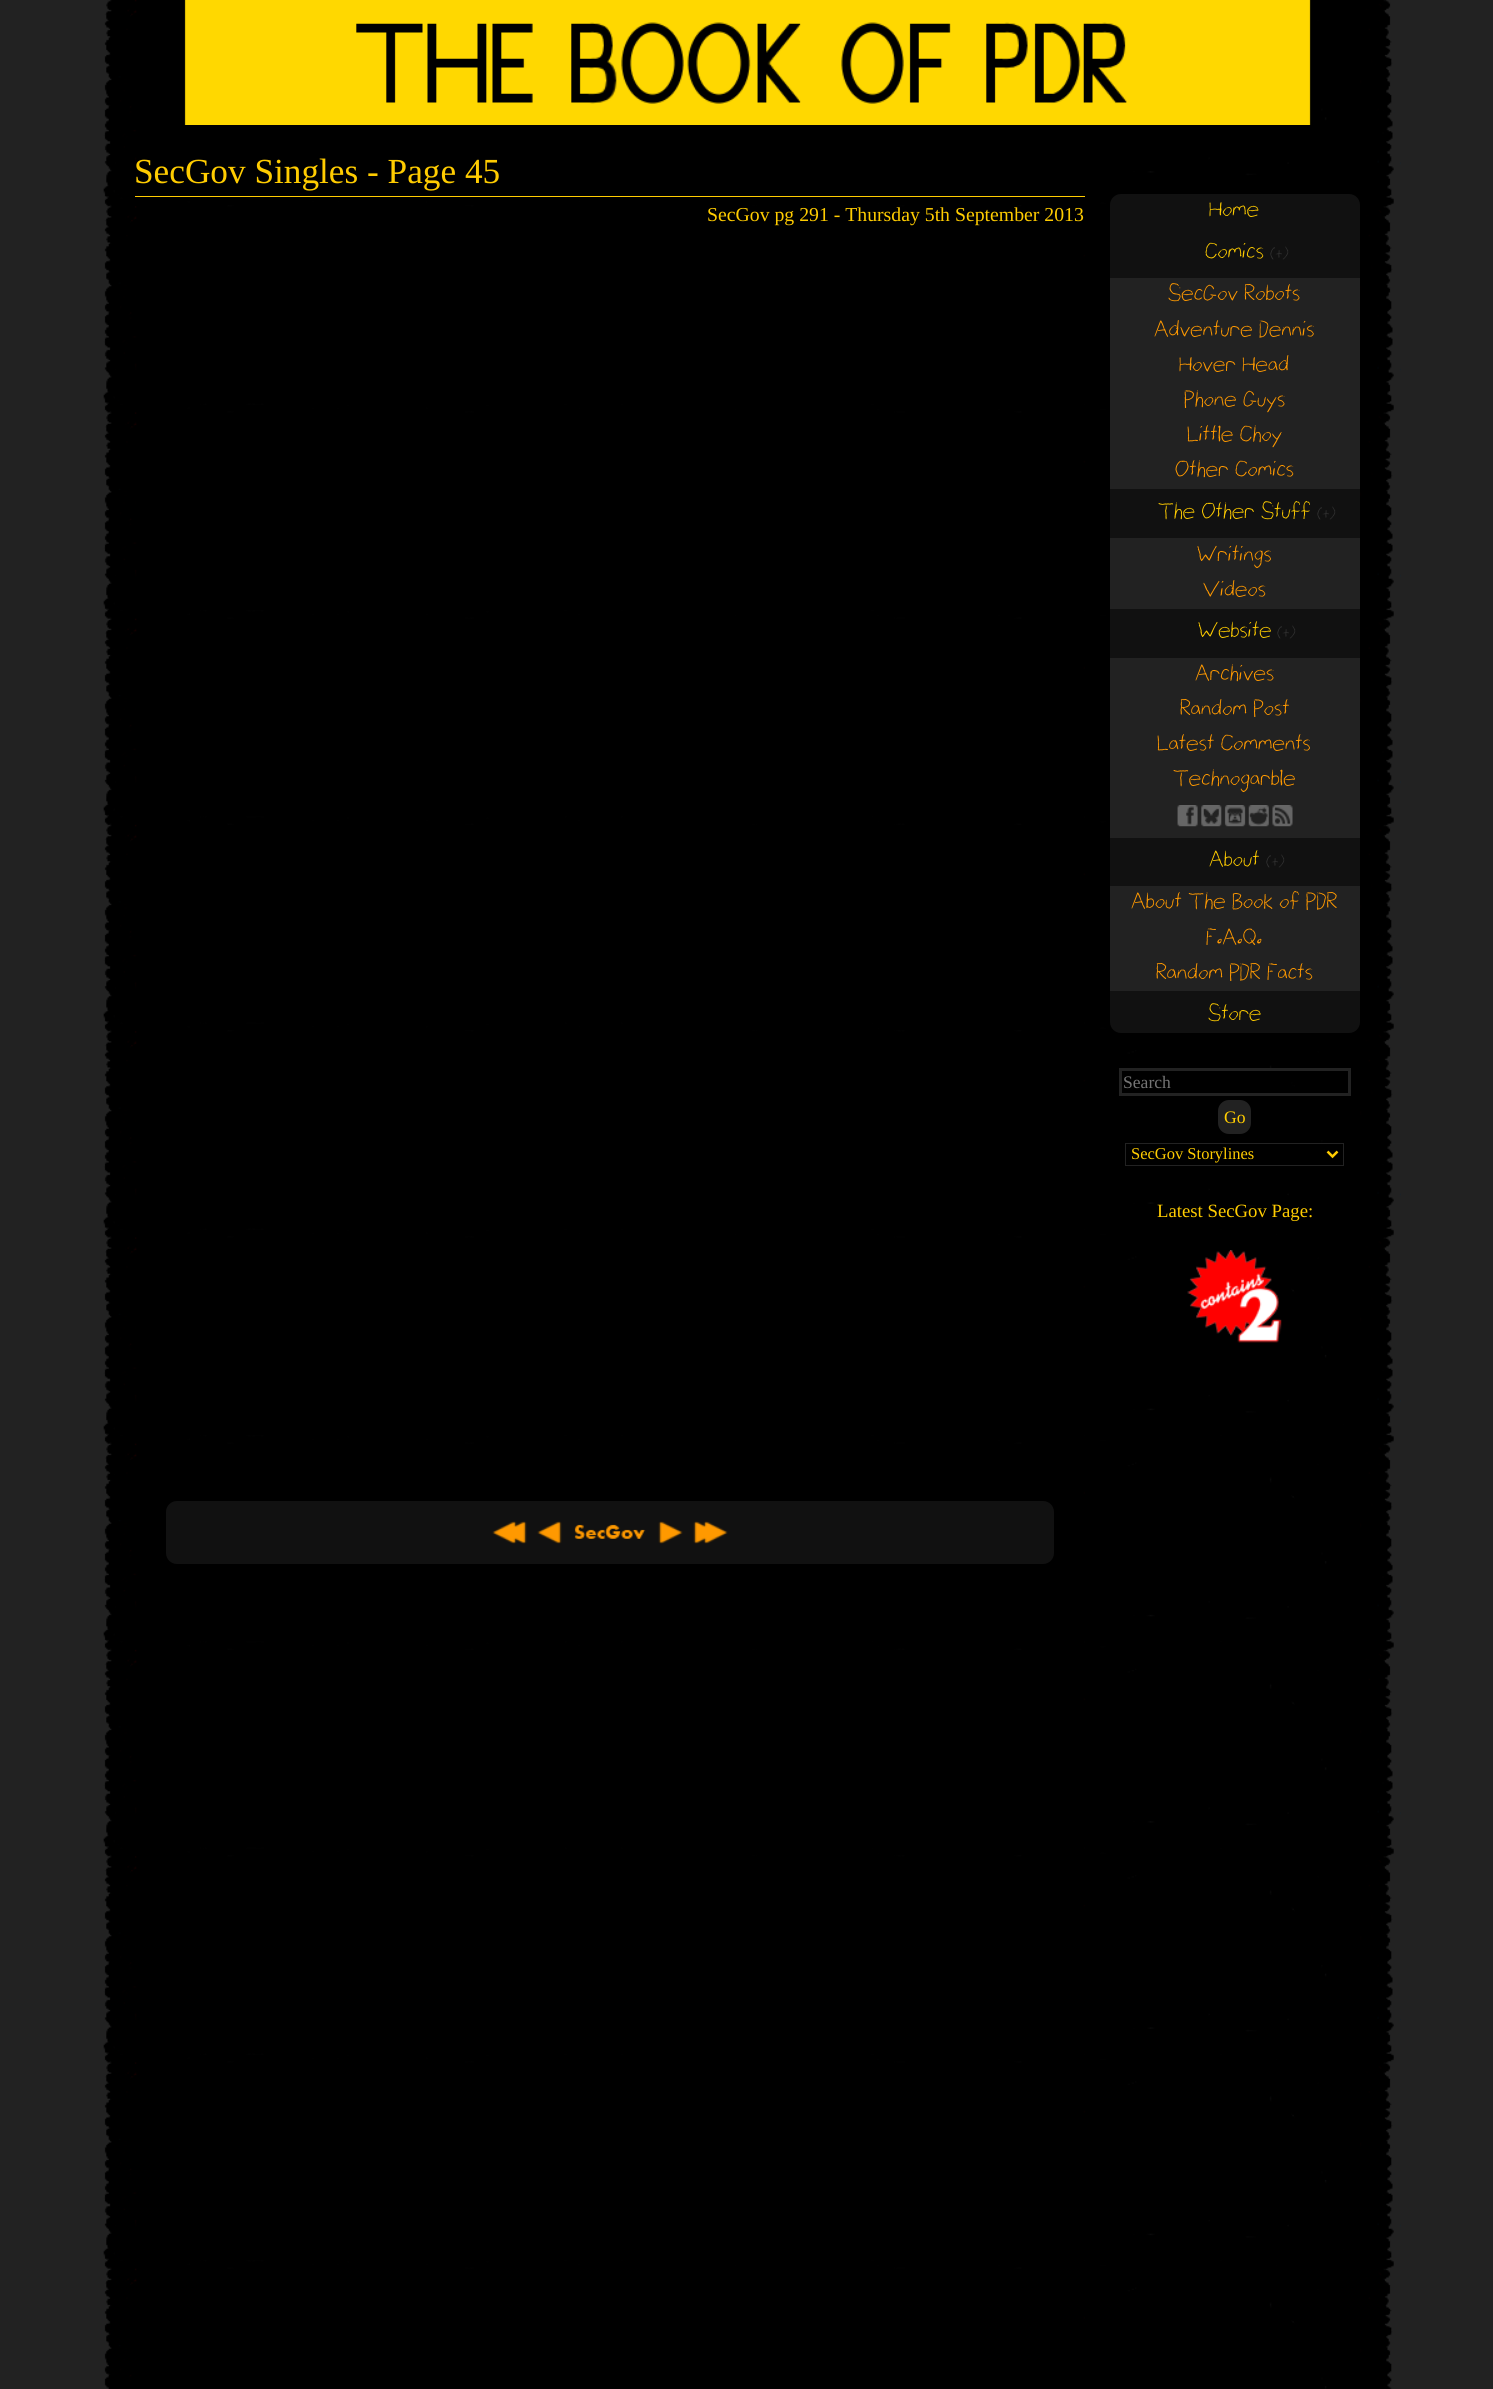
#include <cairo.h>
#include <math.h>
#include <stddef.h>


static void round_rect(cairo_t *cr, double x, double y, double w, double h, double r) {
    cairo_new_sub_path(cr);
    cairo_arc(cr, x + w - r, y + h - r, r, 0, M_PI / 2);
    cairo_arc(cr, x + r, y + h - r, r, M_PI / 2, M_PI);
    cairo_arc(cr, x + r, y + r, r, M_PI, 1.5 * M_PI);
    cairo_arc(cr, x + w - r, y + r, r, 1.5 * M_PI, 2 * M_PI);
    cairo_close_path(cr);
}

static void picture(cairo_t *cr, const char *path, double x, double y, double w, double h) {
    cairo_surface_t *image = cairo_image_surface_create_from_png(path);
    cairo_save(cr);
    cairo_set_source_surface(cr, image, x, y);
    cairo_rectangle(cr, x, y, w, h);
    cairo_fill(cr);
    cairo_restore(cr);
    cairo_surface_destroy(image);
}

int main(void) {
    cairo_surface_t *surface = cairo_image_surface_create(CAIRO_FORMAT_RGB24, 1493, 2389);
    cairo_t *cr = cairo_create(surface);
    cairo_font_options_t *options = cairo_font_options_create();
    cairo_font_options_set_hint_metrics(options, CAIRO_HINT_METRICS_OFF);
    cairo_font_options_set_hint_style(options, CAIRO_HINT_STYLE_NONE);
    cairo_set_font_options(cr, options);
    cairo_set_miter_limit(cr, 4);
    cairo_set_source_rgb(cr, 0.133, 0.133, 0.133);
    cairo_paint(cr);
    picture(cr, "img1.png", 103, 0, 1298, 2389);
    picture(cr, "img2.png", 184, 0, 1127, 125);
    cairo_set_source_rgb(cr, 1, 0.8, 0);
    cairo_rectangle(cr, 135, 196, 950, 1);
    cairo_fill(cr);
    cairo_select_font_face(cr, "Liberation Serif", CAIRO_FONT_SLANT_NORMAL, CAIRO_FONT_WEIGHT_NORMAL);
    cairo_set_font_size(cr, 35.25);
    cairo_move_to(cr, 134, 183);
    cairo_show_text(cr, "SecGov Singles - Page 45");
    cairo_set_font_size(cr, 19.75);
    cairo_move_to(cr, 707, 221);
    cairo_show_text(cr, "SecGov pg 291 - Thursday 5th September 2013");
    cairo_set_source_rgb(cr, 0.067, 0.067, 0.067);
    round_rect(cr, 166, 1501, 888, 63, 11);
    cairo_fill(cr);
    picture(cr, "img3.png", 492, 1521, 236, 23);
    round_rect(cr, 1110, 194, 250, 839, 11);
    cairo_fill(cr);
    cairo_select_font_face(cr, "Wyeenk", CAIRO_FONT_SLANT_NORMAL, CAIRO_FONT_WEIGHT_NORMAL);
    cairo_set_font_size(cr, 17.5);
    cairo_set_source_rgb(cr, 1, 0.8, 0);
    cairo_move_to(cr, 1209, 216);
    cairo_show_text(cr, "Home");
    cairo_move_to(cr, 1205, 258);
    cairo_show_text(cr, "Comics");
    cairo_set_font_size(cr, 12);
    cairo_set_source_rgb(cr, 0.2, 0.2, 0.2);
    cairo_move_to(cr, 1270, 258);
    cairo_show_text(cr, "(+)");
    cairo_set_source_rgb(cr, 0.133, 0.133, 0.133);
    cairo_rectangle(cr, 1110, 278, 250, 211);
    cairo_fill(cr);
    cairo_set_font_size(cr, 17.6);
    cairo_set_source_rgb(cr, 1, 0.6, 0);
    cairo_move_to(cr, 1168, 300);
    cairo_show_text(cr, "SecGov Robots");
    cairo_move_to(cr, 1154, 336);
    cairo_show_text(cr, "Adventure Dennis");
    cairo_move_to(cr, 1179, 371);
    cairo_show_text(cr, "Hover Head");
    cairo_move_to(cr, 1184, 406);
    cairo_show_text(cr, "Phone Guys");
    cairo_move_to(cr, 1187, 441);
    cairo_show_text(cr, "Little Choy");
    cairo_move_to(cr, 1175, 476);
    cairo_show_text(cr, "Other Comics");
    cairo_set_font_size(cr, 17.5);
    cairo_set_source_rgb(cr, 1, 0.8, 0);
    cairo_move_to(cr, 1158, 518);
    cairo_show_text(cr, "The Other Stuff");
    cairo_set_font_size(cr, 12);
    cairo_set_source_rgb(cr, 0.2, 0.2, 0.2);
    cairo_move_to(cr, 1317, 518);
    cairo_show_text(cr, "(+)");
    cairo_set_source_rgb(cr, 0.133, 0.133, 0.133);
    cairo_rectangle(cr, 1110, 538, 250, 71);
    cairo_fill(cr);
    cairo_set_font_size(cr, 17.6);
    cairo_set_source_rgb(cr, 1, 0.6, 0);
    cairo_move_to(cr, 1197, 561);
    cairo_show_text(cr, "Writings");
    cairo_move_to(cr, 1203, 596);
    cairo_show_text(cr, "Videos");
    cairo_set_font_size(cr, 17.5);
    cairo_set_source_rgb(cr, 1, 0.8, 0);
    cairo_move_to(cr, 1198, 637);
    cairo_show_text(cr, "Website");
    cairo_set_font_size(cr, 12);
    cairo_set_source_rgb(cr, 0.2, 0.2, 0.2);
    cairo_move_to(cr, 1277, 637);
    cairo_show_text(cr, "(+)");
    cairo_set_source_rgb(cr, 0.133, 0.133, 0.133);
    cairo_rectangle(cr, 1110, 658, 250, 180);
    cairo_fill(cr);
    cairo_set_font_size(cr, 17.6);
    cairo_set_source_rgb(cr, 1, 0.6, 0);
    cairo_move_to(cr, 1195, 680);
    cairo_show_text(cr, "Archives");
    cairo_move_to(cr, 1180, 715);
    cairo_show_text(cr, "Random Post");
    cairo_move_to(cr, 1157, 750);
    cairo_show_text(cr, "Latest Comments");
    cairo_move_to(cr, 1173, 785);
    cairo_show_text(cr, "Technogarble");
    picture(cr, "img4.png", 1177, 805, 116, 22);
    cairo_set_font_size(cr, 17.5);
    cairo_set_source_rgb(cr, 1, 0.8, 0);
    cairo_move_to(cr, 1209, 866);
    cairo_show_text(cr, "About");
    cairo_set_font_size(cr, 12);
    cairo_set_source_rgb(cr, 0.2, 0.2, 0.2);
    cairo_move_to(cr, 1266, 866);
    cairo_show_text(cr, "(+)");
    cairo_set_source_rgb(cr, 0.133, 0.133, 0.133);
    cairo_rectangle(cr, 1110, 886, 250, 105);
    cairo_fill(cr);
    cairo_set_font_size(cr, 17.6);
    cairo_set_source_rgb(cr, 1, 0.6, 0);
    cairo_move_to(cr, 1131, 908);
    cairo_show_text(cr, "About The Book of PDR");
    cairo_move_to(cr, 1206, 944);
    cairo_show_text(cr, "F.A.Q.");
    cairo_move_to(cr, 1156, 979);
    cairo_show_text(cr, "Random PDR Facts");
    cairo_set_font_size(cr, 17.5);
    cairo_set_source_rgb(cr, 1, 0.8, 0);
    cairo_move_to(cr, 1208, 1020);
    cairo_show_text(cr, "Store");
    cairo_set_source_rgb(cr, 0, 0, 0);
    cairo_rectangle(cr, 1292, 1083, 2, 2);
    cairo_fill(cr);
    cairo_rectangle(cr, 1120.5, 1069.5, 229, 25);
    cairo_set_source_rgb(cr, 0.133, 0.133, 0.133);
    cairo_set_line_width(cr, 3);
    cairo_stroke(cr);
    cairo_select_font_face(cr, "Liberation Serif", CAIRO_FONT_SLANT_NORMAL, CAIRO_FONT_WEIGHT_NORMAL);
    cairo_set_font_size(cr, 17.6);
    cairo_set_source_rgb(cr, 0.459, 0.459, 0.459);
    cairo_move_to(cr, 1123, 1088);
    cairo_show_text(cr, "Search");
    cairo_set_source_rgb(cr, 0.133, 0.133, 0.133);
    round_rect(cr, 1218, 1100, 33, 34, 11);
    cairo_fill(cr);
    cairo_set_source_rgb(cr, 1, 0.8, 0);
    cairo_move_to(cr, 1224, 1123);
    cairo_show_text(cr, "Go");
    cairo_set_source_rgb(cr, 0, 0, 0);
    cairo_rectangle(cr, 1325, 1148, 2, 3);
    cairo_fill(cr);
    cairo_rectangle(cr, 1125.5, 1143.5, 218, 22);
    cairo_set_source_rgb(cr, 0.133, 0.133, 0.133);
    cairo_set_line_width(cr, 1);
    cairo_stroke(cr);
    cairo_new_path(cr);
    cairo_move_to(cr, 1327.5, 1151.5);
    cairo_line_to(cr, 1332.5, 1156.5);
    cairo_line_to(cr, 1337.5, 1151.5);
    cairo_set_source_rgb(cr, 1, 0.8, 0);
    cairo_set_line_width(cr, 2.5);
    cairo_stroke(cr);
    cairo_set_font_size(cr, 16.5);
    cairo_move_to(cr, 1131, 1159);
    cairo_show_text(cr, "SecGov Storylines");
    cairo_set_font_size(cr, 18.75);
    cairo_move_to(cr, 1157, 1217);
    cairo_show_text(cr, "Latest SecGov Page:");
    picture(cr, "img5.png", 1187, 1250, 95, 93);
    cairo_surface_write_to_png(surface, "page.png");
    cairo_font_options_destroy(options);
    cairo_destroy(cr);
    cairo_surface_destroy(surface);
    return 0;
}
